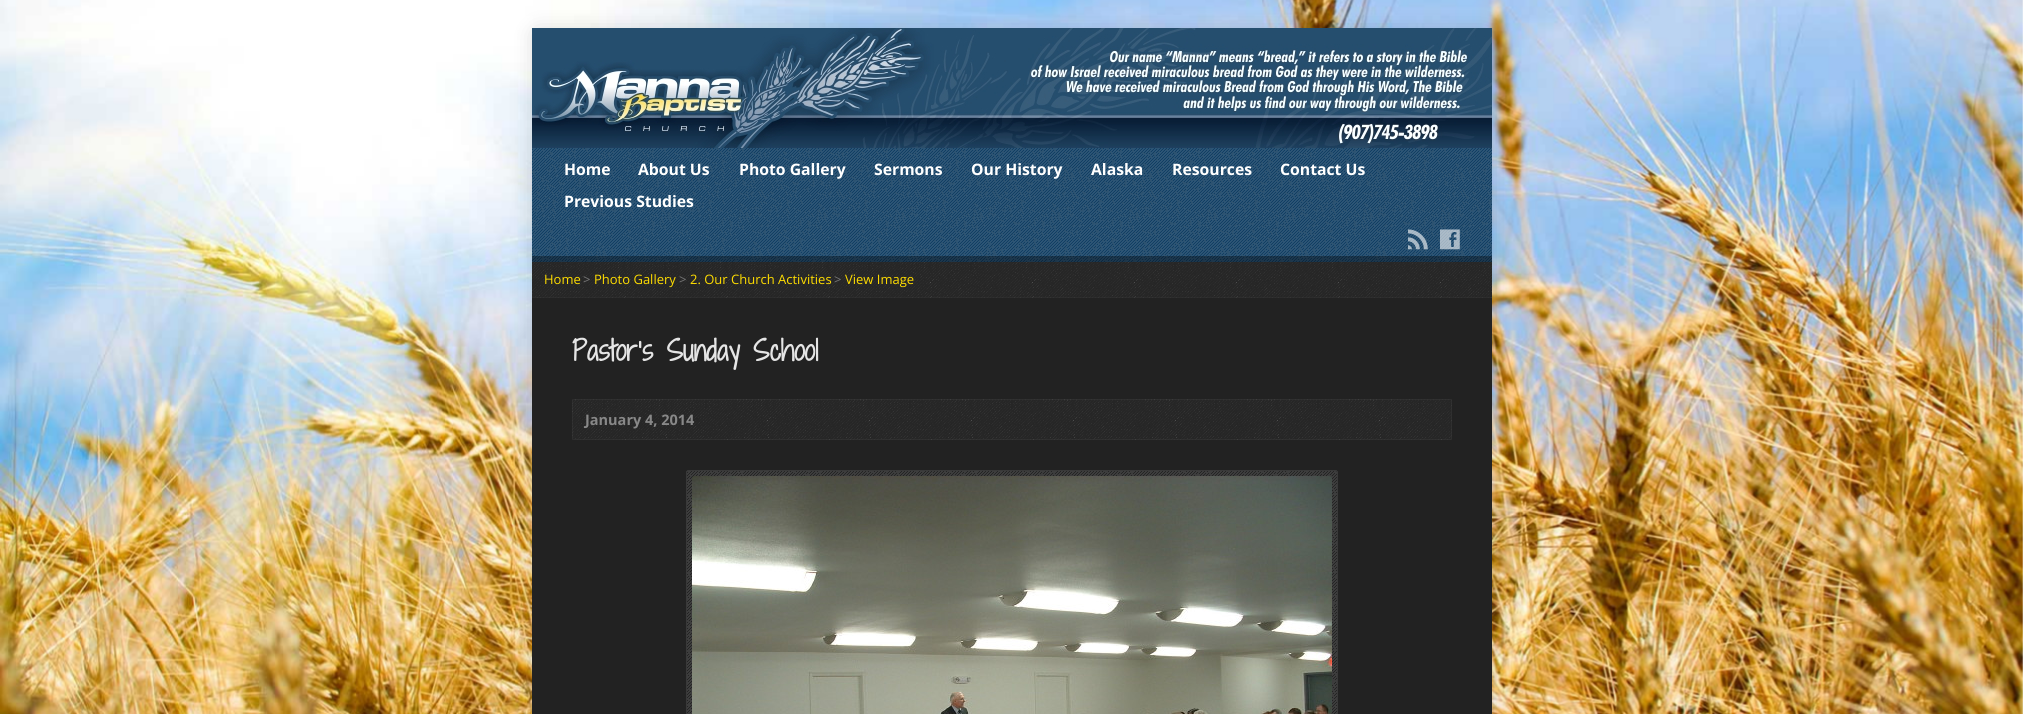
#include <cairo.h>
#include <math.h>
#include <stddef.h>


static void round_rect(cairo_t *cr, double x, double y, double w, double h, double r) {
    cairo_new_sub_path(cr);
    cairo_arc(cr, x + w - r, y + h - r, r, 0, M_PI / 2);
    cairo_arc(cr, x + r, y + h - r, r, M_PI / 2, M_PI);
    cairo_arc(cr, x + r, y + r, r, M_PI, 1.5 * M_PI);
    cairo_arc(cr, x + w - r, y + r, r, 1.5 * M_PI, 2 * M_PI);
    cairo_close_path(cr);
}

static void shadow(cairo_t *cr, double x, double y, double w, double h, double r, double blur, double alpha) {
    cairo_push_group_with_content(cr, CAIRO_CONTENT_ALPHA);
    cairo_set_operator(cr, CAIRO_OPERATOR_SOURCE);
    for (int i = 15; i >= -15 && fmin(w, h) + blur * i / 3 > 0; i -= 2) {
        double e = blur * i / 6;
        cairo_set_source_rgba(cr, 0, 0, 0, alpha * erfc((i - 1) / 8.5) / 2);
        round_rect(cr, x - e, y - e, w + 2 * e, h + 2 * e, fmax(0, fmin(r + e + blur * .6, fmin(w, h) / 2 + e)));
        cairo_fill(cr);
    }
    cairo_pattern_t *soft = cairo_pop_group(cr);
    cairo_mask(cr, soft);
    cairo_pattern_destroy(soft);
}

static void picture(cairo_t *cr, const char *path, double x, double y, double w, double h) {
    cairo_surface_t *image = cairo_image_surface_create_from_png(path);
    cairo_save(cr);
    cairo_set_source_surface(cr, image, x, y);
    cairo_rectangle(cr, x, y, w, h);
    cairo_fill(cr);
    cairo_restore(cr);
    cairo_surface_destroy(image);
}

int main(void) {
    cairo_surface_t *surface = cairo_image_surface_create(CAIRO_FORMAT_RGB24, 2023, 714);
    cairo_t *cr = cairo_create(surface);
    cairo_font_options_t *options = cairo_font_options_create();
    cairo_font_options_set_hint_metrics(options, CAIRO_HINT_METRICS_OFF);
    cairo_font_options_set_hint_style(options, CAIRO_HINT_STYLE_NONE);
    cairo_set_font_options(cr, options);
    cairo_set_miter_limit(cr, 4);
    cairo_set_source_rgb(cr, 1, 1, 1);
    cairo_paint(cr);
    picture(cr, "img1.png", 0, 0, 2023, 714);
    cairo_set_source_rgb(cr, 0, 0, 0);
    shadow(cr, 532, 28, 960, 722, 6, 10, 0.12);
    cairo_set_source_rgb(cr, 0.133, 0.133, 0.133);
    cairo_rectangle(cr, 532, 298, 960, 416);
    cairo_fill(cr);
    picture(cr, "img2.png", 532, 28, 960, 120);
    cairo_set_source_rgb(cr, 0.047, 0.251, 0.412);
    cairo_rectangle(cr, 532, 148, 960, 114);
    cairo_fill(cr);
    picture(cr, "img3.png", 532, 148, 960, 114);
    cairo_select_font_face(cr, "Open Sans", CAIRO_FONT_SLANT_NORMAL, CAIRO_FONT_WEIGHT_BOLD);
    cairo_set_font_size(cr, 15.75);
    cairo_set_source_rgb(cr, 1, 1, 1);
    cairo_move_to(cr, 564, 175);
    cairo_show_text(cr, "Home");
    cairo_move_to(cr, 638, 175);
    cairo_show_text(cr, "About Us");
    cairo_move_to(cr, 739, 175);
    cairo_show_text(cr, "Photo Gallery");
    cairo_move_to(cr, 874, 175);
    cairo_show_text(cr, "Sermons");
    cairo_move_to(cr, 971, 175);
    cairo_show_text(cr, "Our History");
    cairo_move_to(cr, 1091, 175);
    cairo_show_text(cr, "Alaska");
    cairo_move_to(cr, 1172, 175);
    cairo_show_text(cr, "Resources");
    cairo_move_to(cr, 1280, 175);
    cairo_show_text(cr, "Contact Us");
    cairo_move_to(cr, 564, 207);
    cairo_show_text(cr, "Previous Studies");
    picture(cr, "img4.png", 1408, 229, 20, 21);
    picture(cr, "img5.png", 1440, 229, 20, 21);
    cairo_set_source_rgba(cr, 0, 0, 0, 0.35);
    cairo_rectangle(cr, 532, 256, 960, 6);
    cairo_fill(cr);
    picture(cr, "img6.png", 532, 262, 960, 36);
    cairo_set_source_rgba(cr, 1, 1, 1, 0.03);
    cairo_rectangle(cr, 532, 297, 960, 1);
    cairo_fill(cr);
    cairo_select_font_face(cr, "Open Sans", CAIRO_FONT_SLANT_NORMAL, CAIRO_FONT_WEIGHT_NORMAL);
    cairo_set_font_size(cr, 13);
    cairo_set_source_rgb(cr, 1, 0.867, 0);
    cairo_move_to(cr, 544, 284);
    cairo_show_text(cr, "Home");
    cairo_set_source_rgb(cr, 0.467, 0.467, 0.467);
    cairo_move_to(cr, 583, 284);
    cairo_show_text(cr, ">");
    cairo_set_source_rgb(cr, 1, 0.867, 0);
    cairo_move_to(cr, 594, 284);
    cairo_show_text(cr, "Photo Gallery");
    cairo_set_source_rgb(cr, 0.467, 0.467, 0.467);
    cairo_move_to(cr, 679, 284);
    cairo_show_text(cr, ">");
    cairo_set_source_rgb(cr, 1, 0.867, 0);
    cairo_move_to(cr, 690, 284);
    cairo_show_text(cr, "2. Our Church Activities");
    cairo_set_source_rgb(cr, 0.467, 0.467, 0.467);
    cairo_move_to(cr, 834, 284);
    cairo_show_text(cr, ">");
    cairo_set_source_rgb(cr, 1, 0.867, 0);
    cairo_move_to(cr, 845, 284);
    cairo_show_text(cr, "View Image");
    cairo_select_font_face(cr, "Shadows Into Light Two", CAIRO_FONT_SLANT_NORMAL, CAIRO_FONT_WEIGHT_BOLD);
    cairo_set_font_size(cr, 27.25);
    cairo_set_source_rgb(cr, 0.898, 0.898, 0.898);
    cairo_move_to(cr, 572, 361);
    cairo_show_text(cr, "Pastor’s Sunday School");
    picture(cr, "img7.png", 572, 399, 880, 41);
    cairo_rectangle(cr, 572.5, 399.5, 879, 40);
    cairo_set_source_rgba(cr, 1, 1, 1, 0.04);
    cairo_set_line_width(cr, 1);
    cairo_stroke(cr);
    cairo_select_font_face(cr, "Open Sans", CAIRO_FONT_SLANT_NORMAL, CAIRO_FONT_WEIGHT_BOLD);
    cairo_set_font_size(cr, 14.5);
    cairo_set_source_rgb(cr, 0.533, 0.533, 0.533);
    cairo_move_to(cr, 585, 425);
    cairo_show_text(cr, "January 4, 2014");
    picture(cr, "img8.png", 686, 470, 652, 244);
    round_rect(cr, 686.5, 470.5, 651, 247, 2.5);
    cairo_set_source_rgb(cr, 0.224, 0.224, 0.224);
    cairo_stroke(cr);
    picture(cr, "img9.png", 692, 476, 640, 238);
    cairo_surface_write_to_png(surface, "page.png");
    cairo_font_options_destroy(options);
    cairo_destroy(cr);
    cairo_surface_destroy(surface);
    return 0;
}
